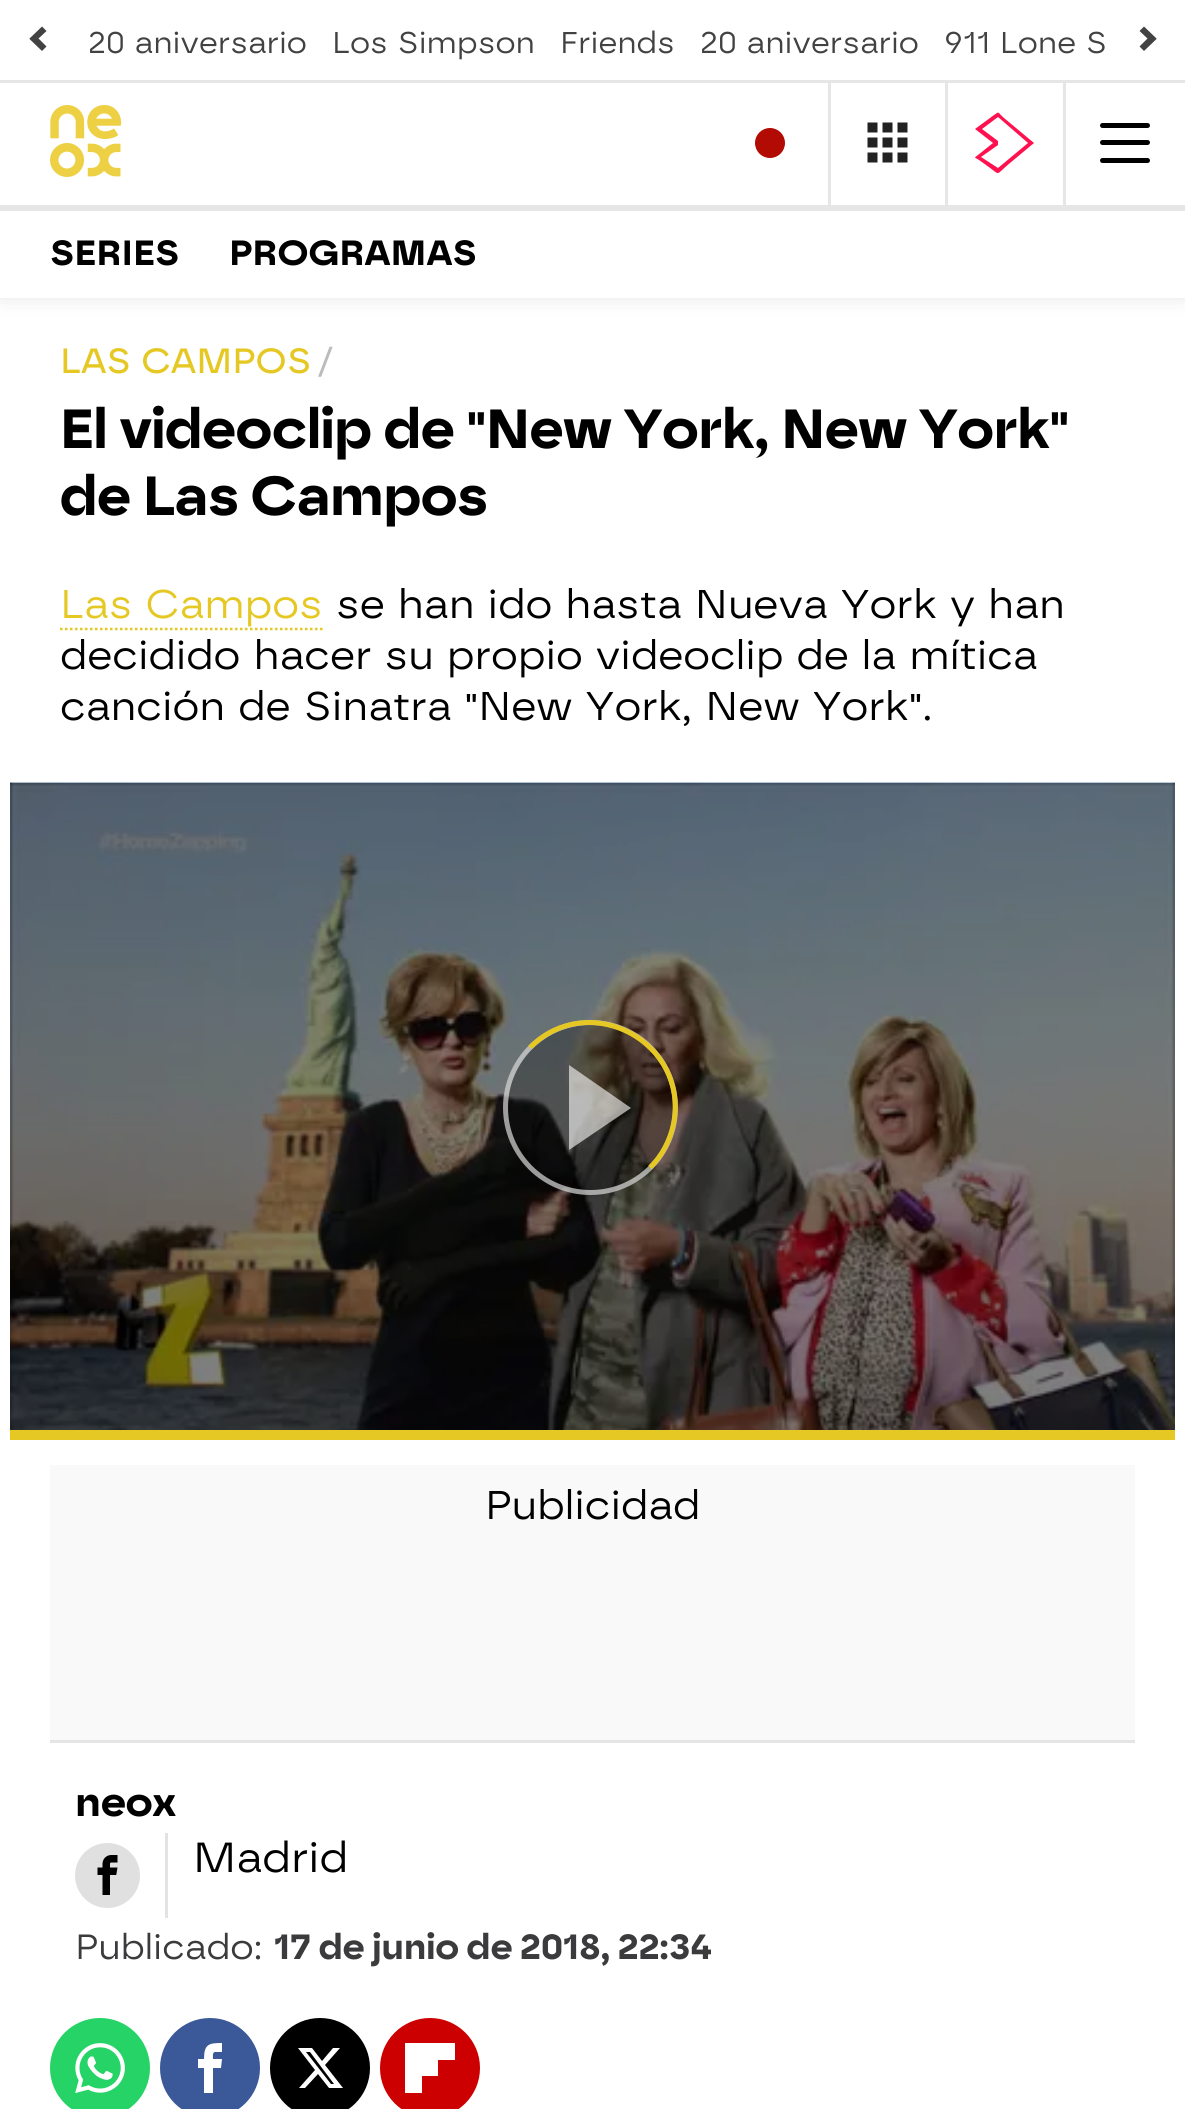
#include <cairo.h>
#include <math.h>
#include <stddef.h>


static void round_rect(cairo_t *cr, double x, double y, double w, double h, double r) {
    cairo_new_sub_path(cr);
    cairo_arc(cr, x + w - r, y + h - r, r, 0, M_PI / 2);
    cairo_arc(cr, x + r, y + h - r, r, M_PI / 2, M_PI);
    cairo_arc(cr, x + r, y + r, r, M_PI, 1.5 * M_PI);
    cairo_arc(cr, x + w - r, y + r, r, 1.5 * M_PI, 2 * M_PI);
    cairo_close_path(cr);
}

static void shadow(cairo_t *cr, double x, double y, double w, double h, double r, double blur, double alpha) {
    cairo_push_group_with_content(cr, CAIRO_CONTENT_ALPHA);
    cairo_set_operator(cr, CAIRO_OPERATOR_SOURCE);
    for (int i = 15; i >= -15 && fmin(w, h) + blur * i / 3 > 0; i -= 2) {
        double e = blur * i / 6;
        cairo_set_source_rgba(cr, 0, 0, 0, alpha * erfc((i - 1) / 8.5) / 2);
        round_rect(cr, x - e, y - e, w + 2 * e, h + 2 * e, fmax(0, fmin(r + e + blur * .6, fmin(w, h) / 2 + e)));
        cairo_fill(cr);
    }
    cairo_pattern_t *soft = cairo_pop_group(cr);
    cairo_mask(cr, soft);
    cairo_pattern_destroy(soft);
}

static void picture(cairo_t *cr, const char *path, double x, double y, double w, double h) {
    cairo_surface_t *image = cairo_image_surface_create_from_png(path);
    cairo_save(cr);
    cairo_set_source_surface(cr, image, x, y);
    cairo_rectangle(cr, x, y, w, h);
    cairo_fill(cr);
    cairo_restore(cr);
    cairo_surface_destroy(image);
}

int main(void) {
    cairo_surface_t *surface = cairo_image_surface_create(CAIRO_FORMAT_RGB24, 1185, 2109);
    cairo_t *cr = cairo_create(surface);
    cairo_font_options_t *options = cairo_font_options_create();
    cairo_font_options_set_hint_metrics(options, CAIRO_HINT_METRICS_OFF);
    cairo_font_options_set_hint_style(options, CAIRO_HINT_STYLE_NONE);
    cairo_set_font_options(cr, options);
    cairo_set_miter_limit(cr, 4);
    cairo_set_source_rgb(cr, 1, 1, 1);
    cairo_paint(cr);
    cairo_set_source_rgb(cr, 0, 0, 0);
    shadow(cr, 0, 0, 1185, 290, 0, 12.5, 0.2);
    cairo_set_source_rgb(cr, 1, 1, 1);
    cairo_rectangle(cr, 0, 0, 1185, 80);
    cairo_fill(cr);
    cairo_set_source_rgb(cr, 0.902, 0.902, 0.902);
    cairo_rectangle(cr, 0, 80, 1185, 3);
    cairo_fill(cr);
    cairo_set_source_rgb(cr, 0.259, 0.259, 0.259);
    cairo_new_path(cr);
    cairo_move_to(cr, 38.5, 38.5);
    cairo_line_to(cr, 46.5, 31);
    cairo_line_to(cr, 42, 26.5);
    cairo_line_to(cr, 29.5, 38.5);
    cairo_line_to(cr, 29.5, 39);
    cairo_line_to(cr, 42, 51);
    cairo_line_to(cr, 46.5, 46.5);
    cairo_close_path(cr);
    cairo_fill(cr);
    cairo_select_font_face(cr, "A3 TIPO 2", CAIRO_FONT_SLANT_NORMAL, CAIRO_FONT_WEIGHT_NORMAL);
    cairo_set_font_size(cr, 30);
    cairo_move_to(cr, 88, 53);
    cairo_show_text(cr, "20 aniversario");
    cairo_move_to(cr, 332, 53);
    cairo_show_text(cr, "Los Simpson");
    cairo_move_to(cr, 560, 53);
    cairo_show_text(cr, "Friends");
    cairo_move_to(cr, 700, 53);
    cairo_show_text(cr, "20 aniversario");
    cairo_move_to(cr, 944, 53);
    cairo_show_text(cr, "911 Lone S");
    cairo_new_path(cr);
    cairo_move_to(cr, 1147.5, 38.5);
    cairo_line_to(cr, 1139.5, 46.5);
    cairo_line_to(cr, 1144, 51);
    cairo_line_to(cr, 1156.5, 39);
    cairo_line_to(cr, 1156.5, 38.5);
    cairo_line_to(cr, 1144, 26.5);
    cairo_line_to(cr, 1139.5, 31);
    cairo_close_path(cr);
    cairo_fill(cr);
    cairo_set_source_rgb(cr, 1, 1, 1);
    cairo_rectangle(cr, 0, 83, 1185, 122);
    cairo_fill(cr);
    cairo_set_source_rgb(cr, 0.902, 0.902, 0.902);
    cairo_rectangle(cr, 0, 205, 1185, 6);
    cairo_fill(cr);
    picture(cr, "img1.png", 50, 105, 72, 72);
    cairo_rectangle(cr, 828, 83, 3, 122);
    cairo_fill(cr);
    cairo_set_source_rgb(cr, 0.698, 0.043, 0.012);
    cairo_arc(cr, 770, 143, 15, 0, 2 * M_PI);
    cairo_fill(cr);
    picture(cr, "img2.png", 867, 122, 41, 41);
    cairo_set_source_rgb(cr, 0.902, 0.902, 0.902);
    cairo_rectangle(cr, 1063, 83, 3, 122);
    cairo_fill(cr);
    cairo_rectangle(cr, 945, 83, 3, 122);
    cairo_fill(cr);
    cairo_set_source_rgb(cr, 1, 0.063, 0.31);
    cairo_new_path(cr);
    cairo_move_to(cr, 998, 117);
    cairo_line_to(cr, 1028, 143);
    cairo_line_to(cr, 998, 168);
    cairo_line_to(cr, 981, 157);
    cairo_line_to(cr, 998, 145);
    cairo_line_to(cr, 998, 141);
    cairo_line_to(cr, 982, 129);
    cairo_close_path(cr);
    cairo_move_to(cr, 993, 143);
    cairo_line_to(cr, 978, 155);
    cairo_curve_to(cr, 974, 158, 974, 157, 979, 160);
    cairo_line_to(cr, 986, 165);
    cairo_curve_to(cr, 1002, 176, 994, 176, 1010, 163);
    cairo_line_to(cr, 1034, 143);
    cairo_line_to(cr, 1004, 118);
    cairo_curve_to(cr, 997, 112, 1000, 111, 994, 115);
    cairo_line_to(cr, 975, 129);
    cairo_close_path(cr);
    cairo_fill(cr);
    cairo_set_source_rgb(cr, 0, 0, 0);
    round_rect(cr, 1100, 123, 50, 5, 2.5);
    cairo_fill(cr);
    round_rect(cr, 1100, 140, 50, 5, 2.5);
    cairo_fill(cr);
    round_rect(cr, 1100, 158, 50, 5, 2.5);
    cairo_fill(cr);
    cairo_set_source_rgb(cr, 1, 1, 1);
    cairo_rectangle(cr, 0, 211, 1185, 87);
    cairo_fill(cr);
    cairo_select_font_face(cr, "A3 TIPO 2", CAIRO_FONT_SLANT_NORMAL, CAIRO_FONT_WEIGHT_BOLD);
    cairo_set_font_size(cr, 35);
    cairo_set_source_rgb(cr, 0, 0, 0);
    cairo_move_to(cr, 50, 265);
    cairo_show_text(cr, "SERIES");
    cairo_move_to(cr, 229, 265);
    cairo_show_text(cr, "PROGRAMAS");
    cairo_select_font_face(cr, "A3 TIPO 2 Medium", CAIRO_FONT_SLANT_NORMAL, CAIRO_FONT_WEIGHT_NORMAL);
    cairo_set_source_rgb(cr, 0.898, 0.784, 0.137);
    cairo_move_to(cr, 60, 373);
    cairo_show_text(cr, "LAS CAMPOS");
    cairo_select_font_face(cr, "A3 TIPO 2", CAIRO_FONT_SLANT_NORMAL, CAIRO_FONT_WEIGHT_NORMAL);
    cairo_set_source_rgb(cr, 0.733, 0.733, 0.733);
    cairo_move_to(cr, 316, 373);
    cairo_show_text(cr, "/");
    cairo_select_font_face(cr, "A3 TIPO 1", CAIRO_FONT_SLANT_NORMAL, CAIRO_FONT_WEIGHT_BOLD);
    cairo_set_font_size(cr, 55);
    cairo_set_source_rgb(cr, 0, 0, 0);
    cairo_move_to(cr, 60, 448);
    cairo_show_text(cr, "El videoclip de \"New York, New York\"");
    cairo_move_to(cr, 60, 515);
    cairo_show_text(cr, "de Las Campos");
    cairo_select_font_face(cr, "A3 TIPO 2", CAIRO_FONT_SLANT_NORMAL, CAIRO_FONT_WEIGHT_NORMAL);
    cairo_set_font_size(cr, 40);
    cairo_set_source_rgb(cr, 0.898, 0.784, 0.137);
    cairo_move_to(cr, 60, 618);
    cairo_show_text(cr, "Las Campos");
    cairo_new_path(cr);
    cairo_move_to(cr, 60, 629);
    cairo_line_to(cr, 322.5, 629);
    cairo_set_line_width(cr, 2.5);
    cairo_set_dash(cr, (double[]){2.5, 2.5}, 2, 0);
    cairo_stroke(cr);
    cairo_set_source_rgb(cr, 0, 0, 0);
    cairo_move_to(cr, 336, 618);
    cairo_show_text(cr, "se han ido hasta Nueva York y han");
    cairo_move_to(cr, 60, 669);
    cairo_show_text(cr, "decidido hacer su propio videoclip de la mítica");
    cairo_move_to(cr, 60, 720);
    cairo_show_text(cr, "canción de Sinatra \"New York, New York\".");
    picture(cr, "img3.png", 10, 782, 1165, 1);
    picture(cr, "img4.png", 10, 782, 1165, 648);
    cairo_set_source_rgba(cr, 0, 0, 0, 0.3);
    cairo_arc(cr, 590.5, 1107.5, 87.5, 0, 2 * M_PI);
    cairo_fill(cr);
    cairo_arc(cr, 590.5, 1107.5, 85, 0, 2 * M_PI);
    cairo_set_source_rgba(cr, 1, 1, 1, 0.6);
    cairo_set_line_width(cr, 5);
    cairo_set_dash(cr, NULL, 0, 0);
    cairo_stroke(cr);
    cairo_new_path(cr);
    cairo_move_to(cr, 569, 1150);
    cairo_line_to(cr, 569, 1065);
    cairo_line_to(cr, 631, 1108);
    cairo_close_path(cr);
    cairo_fill(cr);
    cairo_new_path(cr);
    cairo_move_to(cr, 530, 1047.5);
    cairo_curve_to(cr, 589, 988.5, 689.5, 1042, 673.5, 1124);
    cairo_curve_to(cr, 670, 1140.5, 662, 1156, 650, 1167.5);
    cairo_set_source_rgb(cr, 0.898, 0.784, 0.137);
    cairo_stroke(cr);
    cairo_rectangle(cr, 10, 1430, 1165, 10);
    cairo_fill(cr);
    cairo_set_source_rgb(cr, 0.976, 0.976, 0.976);
    cairo_rectangle(cr, 50, 1465, 1085, 275);
    cairo_fill(cr);
    cairo_set_source_rgb(cr, 0, 0, 0);
    cairo_move_to(cr, 485, 1519);
    cairo_show_text(cr, "Publicidad");
    cairo_set_source_rgb(cr, 0.898, 0.898, 0.898);
    cairo_rectangle(cr, 50, 1740, 1085, 3);
    cairo_fill(cr);
    cairo_select_font_face(cr, "A3 TIPO 2", CAIRO_FONT_SLANT_NORMAL, CAIRO_FONT_WEIGHT_BOLD);
    cairo_set_source_rgb(cr, 0, 0, 0);
    cairo_move_to(cr, 75, 1816);
    cairo_show_text(cr, "neox");
    cairo_set_source_rgb(cr, 0.878, 0.878, 0.878);
    cairo_new_path(cr);
    cairo_arc(cr, 107.5, 1875.5, 32.5, 0, 2 * M_PI);
    cairo_fill(cr);
    picture(cr, "img5.png", 97, 1855, 21, 40);
    cairo_set_source_rgb(cr, 0.89, 0.89, 0.89);
    cairo_rectangle(cr, 165, 1833, 3, 85);
    cairo_fill(cr);
    cairo_select_font_face(cr, "A3 TIPO 2", CAIRO_FONT_SLANT_NORMAL, CAIRO_FONT_WEIGHT_NORMAL);
    cairo_set_font_size(cr, 42);
    cairo_set_source_rgb(cr, 0, 0, 0);
    cairo_move_to(cr, 193, 1872);
    cairo_show_text(cr, "Madrid");
    cairo_set_font_size(cr, 35);
    cairo_set_source_rgb(cr, 0.231, 0.231, 0.239);
    cairo_move_to(cr, 75, 1959);
    cairo_show_text(cr, "Publicado:");
    cairo_select_font_face(cr, "A3 TIPO 2", CAIRO_FONT_SLANT_NORMAL, CAIRO_FONT_WEIGHT_BOLD);
    cairo_move_to(cr, 274, 1959);
    cairo_show_text(cr, "17 de junio de 2018, 22:34");
    cairo_set_source_rgb(cr, 0.145, 0.827, 0.4);
    cairo_new_path(cr);
    cairo_arc(cr, 100, 2068, 50, 0, 2 * M_PI);
    cairo_fill(cr);
    picture(cr, "img6.png", 75, 2043, 50, 51);
    cairo_set_source_rgb(cr, 0.231, 0.349, 0.596);
    cairo_arc(cr, 210, 2068, 50, 0, 2 * M_PI);
    cairo_fill(cr);
    cairo_set_source_rgb(cr, 1, 1, 1);
    cairo_new_path(cr);
    cairo_move_to(cr, 215, 2052);
    cairo_line_to(cr, 222, 2052);
    cairo_line_to(cr, 222, 2043);
    cairo_curve_to(cr, 209, 2043, 204, 2044, 204, 2059);
    cairo_line_to(cr, 198, 2059);
    cairo_line_to(cr, 198, 2068);
    cairo_line_to(cr, 204, 2068);
    cairo_line_to(cr, 204, 2093);
    cairo_line_to(cr, 213, 2093);
    cairo_line_to(cr, 213, 2068);
    cairo_line_to(cr, 221, 2068);
    cairo_line_to(cr, 222, 2059);
    cairo_line_to(cr, 213, 2059);
    cairo_curve_to(cr, 213, 2058, 212, 2052, 215, 2052);
    cairo_close_path(cr);
    cairo_fill(cr);
    cairo_set_source_rgb(cr, 0, 0, 0);
    cairo_arc(cr, 320, 2068, 50, 0, 2 * M_PI);
    cairo_fill(cr);
    cairo_set_source_rgb(cr, 1, 1, 1);
    cairo_new_path(cr);
    cairo_move_to(cr, 333, 2048);
    cairo_line_to(cr, 340, 2048);
    cairo_line_to(cr, 325, 2065);
    cairo_line_to(cr, 343, 2088);
    cairo_line_to(cr, 329, 2088);
    cairo_line_to(cr, 318, 2074);
    cairo_line_to(cr, 305, 2088);
    cairo_line_to(cr, 299, 2088);
    cairo_line_to(cr, 315, 2070);
    cairo_line_to(cr, 298, 2048);
    cairo_line_to(cr, 312, 2048);
    cairo_line_to(cr, 322, 2061);
    cairo_close_path(cr);
    cairo_move_to(cr, 331, 2084);
    cairo_line_to(cr, 334, 2084);
    cairo_line_to(cr, 310, 2052);
    cairo_line_to(cr, 306, 2052);
    cairo_close_path(cr);
    cairo_fill(cr);
    cairo_set_source_rgb(cr, 0.8, 0, 0);
    cairo_arc(cr, 430, 2068, 50, 0, 2 * M_PI);
    cairo_fill(cr);
    cairo_set_source_rgb(cr, 1, 1, 1);
    cairo_new_path(cr);
    cairo_move_to(cr, 438, 2060);
    cairo_line_to(cr, 422, 2060);
    cairo_line_to(cr, 422, 2076);
    cairo_line_to(cr, 438, 2076);
    cairo_close_path(cr);
    cairo_move_to(cr, 455, 2043);
    cairo_line_to(cr, 422, 2043);
    cairo_line_to(cr, 422, 2060);
    cairo_line_to(cr, 455, 2060);
    cairo_close_path(cr);
    cairo_move_to(cr, 422, 2043);
    cairo_line_to(cr, 405, 2043);
    cairo_line_to(cr, 405, 2093);
    cairo_line_to(cr, 422, 2093);
    cairo_close_path(cr);
    cairo_fill(cr);
    cairo_surface_write_to_png(surface, "page.png");
    cairo_font_options_destroy(options);
    cairo_destroy(cr);
    cairo_surface_destroy(surface);
    return 0;
}
